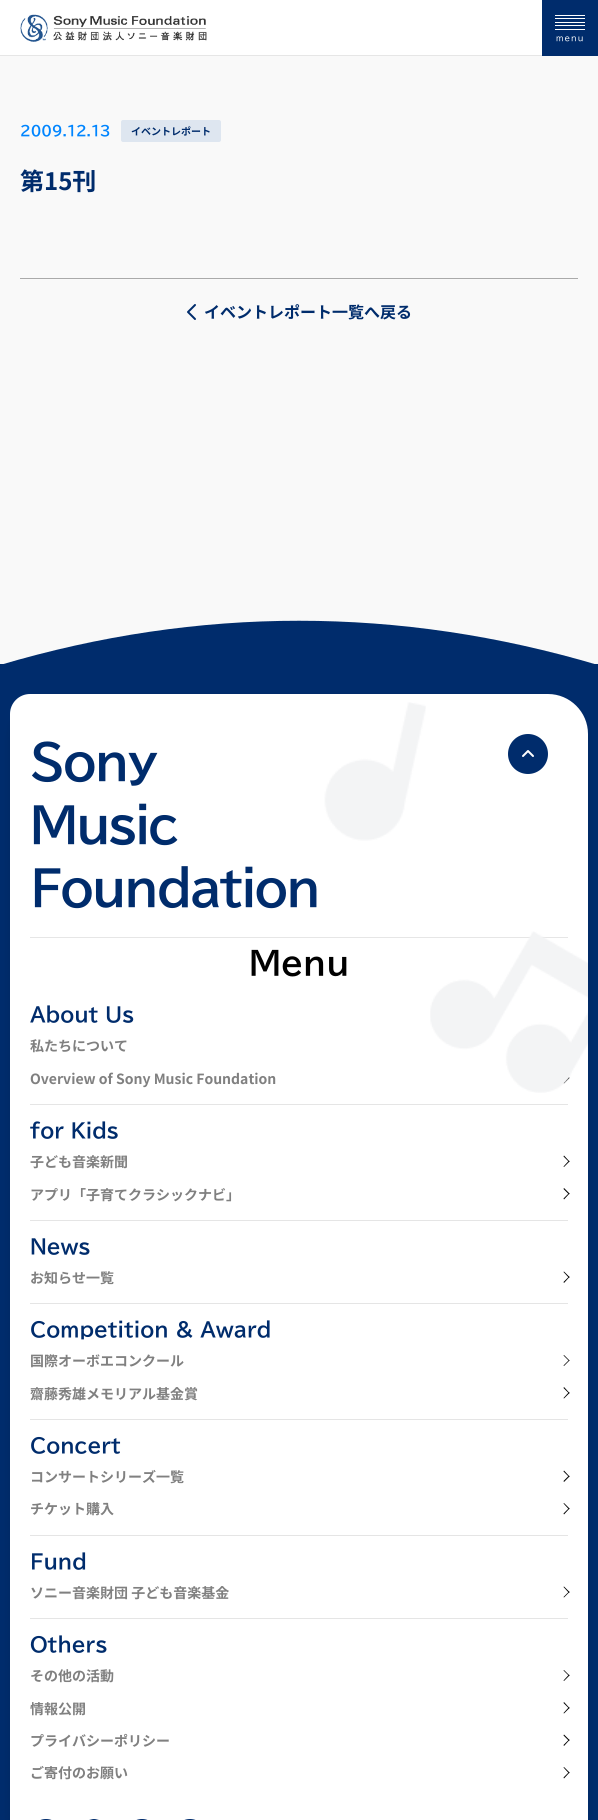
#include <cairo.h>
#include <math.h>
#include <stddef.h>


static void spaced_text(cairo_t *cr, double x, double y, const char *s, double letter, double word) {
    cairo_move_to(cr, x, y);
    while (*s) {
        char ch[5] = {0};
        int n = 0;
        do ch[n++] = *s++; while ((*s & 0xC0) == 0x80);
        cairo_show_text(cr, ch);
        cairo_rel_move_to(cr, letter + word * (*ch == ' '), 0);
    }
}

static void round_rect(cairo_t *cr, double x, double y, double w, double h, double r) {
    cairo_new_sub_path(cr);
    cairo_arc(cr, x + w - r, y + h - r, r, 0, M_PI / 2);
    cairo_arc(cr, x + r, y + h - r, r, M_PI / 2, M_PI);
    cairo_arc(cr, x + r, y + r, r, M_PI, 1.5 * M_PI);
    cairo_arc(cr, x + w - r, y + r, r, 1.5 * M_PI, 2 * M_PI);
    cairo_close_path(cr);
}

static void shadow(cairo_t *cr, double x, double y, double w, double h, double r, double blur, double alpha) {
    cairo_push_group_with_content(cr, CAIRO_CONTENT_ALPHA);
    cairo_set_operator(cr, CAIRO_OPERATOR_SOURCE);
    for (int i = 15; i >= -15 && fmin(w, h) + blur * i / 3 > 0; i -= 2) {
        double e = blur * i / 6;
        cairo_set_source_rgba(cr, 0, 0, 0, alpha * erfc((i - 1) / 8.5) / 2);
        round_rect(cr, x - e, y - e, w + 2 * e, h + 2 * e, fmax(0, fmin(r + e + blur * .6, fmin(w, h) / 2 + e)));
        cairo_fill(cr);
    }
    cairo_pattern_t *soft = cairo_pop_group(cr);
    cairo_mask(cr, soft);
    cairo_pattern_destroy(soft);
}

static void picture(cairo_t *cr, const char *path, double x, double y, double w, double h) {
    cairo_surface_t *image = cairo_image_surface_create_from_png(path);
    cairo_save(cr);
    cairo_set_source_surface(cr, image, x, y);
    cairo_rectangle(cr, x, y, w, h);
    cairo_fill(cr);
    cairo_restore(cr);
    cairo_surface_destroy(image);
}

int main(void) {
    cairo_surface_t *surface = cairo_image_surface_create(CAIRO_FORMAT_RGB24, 598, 1820);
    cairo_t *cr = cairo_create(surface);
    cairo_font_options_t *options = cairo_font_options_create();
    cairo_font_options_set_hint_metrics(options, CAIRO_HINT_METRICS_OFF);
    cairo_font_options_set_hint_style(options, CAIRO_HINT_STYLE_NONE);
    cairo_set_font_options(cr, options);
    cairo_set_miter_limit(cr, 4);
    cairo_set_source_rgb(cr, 0.973, 0.973, 0.973);
    cairo_paint(cr);
    cairo_set_source_rgb(cr, 1, 1, 1);
    cairo_rectangle(cr, 0, 0, 542, 55);
    cairo_fill(cr);
    cairo_set_source_rgb(cr, 0.902, 0.902, 0.902);
    cairo_rectangle(cr, 0, 55, 542, 1);
    cairo_fill(cr);
    picture(cr, "img1.png", 20, 14, 187, 28);
    cairo_set_source_rgb(cr, 0, 0.173, 0.424);
    cairo_rectangle(cr, 542, 0, 56, 56);
    cairo_fill(cr);
    cairo_set_source_rgb(cr, 1, 1, 1);
    cairo_rectangle(cr, 555, 15, 30, 1);
    cairo_fill(cr);
    cairo_rectangle(cr, 555, 18, 30, 1);
    cairo_fill(cr);
    cairo_rectangle(cr, 555, 22, 30, 1);
    cairo_fill(cr);
    cairo_rectangle(cr, 555, 25, 30, 1);
    cairo_fill(cr);
    cairo_rectangle(cr, 555, 29, 30, 1);
    cairo_fill(cr);
    cairo_select_font_face(cr, "BIZ UDPGothic", CAIRO_FONT_SLANT_NORMAL, CAIRO_FONT_WEIGHT_NORMAL);
    cairo_set_font_size(cr, 8);
    spaced_text(cr, 556, 41, "menu", 1, 0);
    cairo_select_font_face(cr, "BIZ UDPGothic", CAIRO_FONT_SLANT_NORMAL, CAIRO_FONT_WEIGHT_BOLD);
    cairo_set_font_size(cr, 14);
    cairo_set_source_rgb(cr, 0, 0.522, 1);
    cairo_move_to(cr, 20, 136);
    cairo_show_text(cr, "2009.12.13");
    cairo_set_source_rgb(cr, 0.871, 0.902, 0.941);
    round_rect(cr, 121, 120, 100, 22, 2);
    cairo_fill(cr);
    cairo_select_font_face(cr, "Noto Sans JP", CAIRO_FONT_SLANT_NORMAL, CAIRO_FONT_WEIGHT_BOLD);
    cairo_set_font_size(cr, 10);
    cairo_set_source_rgb(cr, 0, 0.173, 0.424);
    cairo_move_to(cr, 131, 135);
    cairo_show_text(cr, "イベントレポート");
    cairo_set_font_size(cr, 24);
    cairo_move_to(cr, 20, 190);
    cairo_show_text(cr, "第15刊");
    cairo_set_source_rgb(cr, 0.667, 0.667, 0.667);
    cairo_rectangle(cr, 20, 278, 558, 1);
    cairo_fill(cr);
    cairo_new_path(cr);
    cairo_move_to(cr, 195, 305);
    cairo_line_to(cr, 188, 312);
    cairo_line_to(cr, 195, 319);
    cairo_set_source_rgb(cr, 0, 0.173, 0.424);
    cairo_set_line_cap(cr, CAIRO_LINE_CAP_ROUND);
    cairo_set_line_join(cr, CAIRO_LINE_JOIN_ROUND);
    cairo_stroke(cr);
    cairo_set_font_size(cr, 16);
    cairo_move_to(cr, 204, 318);
    cairo_show_text(cr, "イベントレポート一覧へ戻る");
    cairo_rectangle(cr, 0, 664, 598, 1156);
    cairo_fill(cr);
    cairo_new_path(cr);
    cairo_move_to(cr, 0, 665);
    cairo_curve_to(cr, 199, 606, 399, 606, 598, 665);
    cairo_close_path(cr);
    cairo_fill(cr);
    cairo_set_source_rgb(cr, 0, 0, 0);
    shadow(cr, 10, 698, 578, 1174, 40, 4, 0.1);
    cairo_set_source_rgb(cr, 1, 1, 1);
    cairo_new_path(cr);
    cairo_move_to(cr, 30, 694);
    cairo_line_to(cr, 548, 694);
    cairo_curve_to(cr, 570, 694, 588, 712, 588, 734);
    cairo_line_to(cr, 588, 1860);
    cairo_line_to(cr, 10, 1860);
    cairo_line_to(cr, 10, 714);
    cairo_curve_to(cr, 10, 703, 19, 694, 30, 694);
    cairo_close_path(cr);
    cairo_fill(cr);
    picture(cr, "img2.png", 324, 702, 102, 139);
    cairo_set_source_rgb(cr, 0.902, 0.902, 0.902);
    cairo_rectangle(cr, 30, 937, 538, 1);
    cairo_fill(cr);
    cairo_set_source_rgb(cr, 0, 0, 0);
    cairo_new_path(cr);
    cairo_move_to(cr, 569, 1077);
    cairo_line_to(cr, 569.5, 1078);
    cairo_line_to(cr, 564, 1083.5);
    cairo_line_to(cr, 563.5, 1083);
    cairo_close_path(cr);
    cairo_fill(cr);
    picture(cr, "img3.png", 430, 931, 158, 162);
    cairo_select_font_face(cr, "BIZ UDPGothic", CAIRO_FONT_SLANT_NORMAL, CAIRO_FONT_WEIGHT_BOLD);
    cairo_set_font_size(cr, 48);
    cairo_set_source_rgb(cr, 0, 0.173, 0.424);
    spaced_text(cr, 30, 780, "Sony", -2, 0);
    spaced_text(cr, 30, 843, "Music", -2, 0);
    spaced_text(cr, 30, 906, "Foundation", -2, 0);
    cairo_new_path(cr);
    cairo_arc(cr, 528, 754, 20, 0, 2 * M_PI);
    cairo_fill(cr);
    cairo_new_path(cr);
    cairo_move_to(cr, 523, 756);
    cairo_line_to(cr, 528, 751);
    cairo_line_to(cr, 533, 756);
    cairo_set_source_rgb(cr, 1, 1, 1);
    cairo_stroke(cr);
    cairo_set_font_size(cr, 32);
    cairo_set_source_rgb(cr, 0, 0, 0);
    cairo_move_to(cr, 249, 975);
    cairo_show_text(cr, "Menu");
    cairo_set_source_rgb(cr, 0.898, 0.898, 0.898);
    cairo_rectangle(cr, 30, 1104, 538, 1);
    cairo_fill(cr);
    cairo_set_font_size(cr, 20);
    cairo_set_source_rgb(cr, 0, 0.173, 0.424);
    cairo_move_to(cr, 30, 1022);
    cairo_show_text(cr, "About Us");
    cairo_select_font_face(cr, "Noto Sans JP", CAIRO_FONT_SLANT_NORMAL, CAIRO_FONT_WEIGHT_BOLD);
    cairo_set_font_size(cr, 14);
    cairo_set_source_rgb(cr, 0.502, 0.502, 0.502);
    cairo_move_to(cr, 30, 1051);
    cairo_show_text(cr, "私たちについて");
    cairo_move_to(cr, 30, 1084);
    cairo_show_text(cr, "Overview of Sony Music Foundation");
    cairo_set_source_rgb(cr, 0.898, 0.898, 0.898);
    cairo_rectangle(cr, 30, 1535, 538, 1);
    cairo_fill(cr);
    cairo_select_font_face(cr, "BIZ UDPGothic", CAIRO_FONT_SLANT_NORMAL, CAIRO_FONT_WEIGHT_BOLD);
    cairo_set_font_size(cr, 20);
    cairo_set_source_rgb(cr, 0, 0.173, 0.424);
    cairo_move_to(cr, 30, 1453);
    cairo_show_text(cr, "Concert");
    cairo_select_font_face(cr, "Noto Sans JP", CAIRO_FONT_SLANT_NORMAL, CAIRO_FONT_WEIGHT_BOLD);
    cairo_set_font_size(cr, 14);
    cairo_set_source_rgb(cr, 0.502, 0.502, 0.502);
    cairo_move_to(cr, 30, 1482);
    cairo_show_text(cr, "コンサートシリーズ一覧");
    cairo_set_source_rgb(cr, 0, 0, 0);
    cairo_new_path(cr);
    cairo_move_to(cr, 564, 1470.5);
    cairo_line_to(cr, 569.5, 1476.5);
    cairo_line_to(cr, 569, 1477);
    cairo_line_to(cr, 563.5, 1471.5);
    cairo_close_path(cr);
    cairo_fill(cr);
    cairo_new_path(cr);
    cairo_move_to(cr, 569, 1475.5);
    cairo_line_to(cr, 569.5, 1476.5);
    cairo_line_to(cr, 564, 1482);
    cairo_line_to(cr, 563.5, 1481);
    cairo_close_path(cr);
    cairo_fill(cr);
    cairo_set_source_rgb(cr, 0.502, 0.502, 0.502);
    cairo_move_to(cr, 30, 1514);
    cairo_show_text(cr, "チケット購入");
    cairo_set_source_rgb(cr, 0, 0, 0);
    cairo_new_path(cr);
    cairo_move_to(cr, 564, 1503);
    cairo_line_to(cr, 569.5, 1508.5);
    cairo_line_to(cr, 569, 1509.5);
    cairo_line_to(cr, 563.5, 1503.5);
    cairo_close_path(cr);
    cairo_fill(cr);
    cairo_new_path(cr);
    cairo_move_to(cr, 569, 1508);
    cairo_line_to(cr, 569.5, 1508.5);
    cairo_line_to(cr, 564, 1514.5);
    cairo_line_to(cr, 563.5, 1513.5);
    cairo_close_path(cr);
    cairo_fill(cr);
    cairo_set_source_rgb(cr, 0.898, 0.898, 0.898);
    cairo_rectangle(cr, 30, 1220, 538, 1);
    cairo_fill(cr);
    cairo_select_font_face(cr, "BIZ UDPGothic", CAIRO_FONT_SLANT_NORMAL, CAIRO_FONT_WEIGHT_BOLD);
    cairo_set_font_size(cr, 20);
    cairo_set_source_rgb(cr, 0, 0.173, 0.424);
    cairo_move_to(cr, 30, 1138);
    cairo_show_text(cr, "for Kids");
    cairo_select_font_face(cr, "Noto Sans JP", CAIRO_FONT_SLANT_NORMAL, CAIRO_FONT_WEIGHT_BOLD);
    cairo_set_font_size(cr, 14);
    cairo_set_source_rgb(cr, 0.502, 0.502, 0.502);
    cairo_move_to(cr, 30, 1167);
    cairo_show_text(cr, "子ども音楽新聞");
    cairo_set_source_rgb(cr, 0, 0, 0);
    cairo_new_path(cr);
    cairo_move_to(cr, 564, 1155.5);
    cairo_line_to(cr, 569.5, 1161.5);
    cairo_line_to(cr, 569, 1162);
    cairo_line_to(cr, 563.5, 1156.5);
    cairo_close_path(cr);
    cairo_fill(cr);
    cairo_new_path(cr);
    cairo_move_to(cr, 569, 1160.5);
    cairo_line_to(cr, 569.5, 1161.5);
    cairo_line_to(cr, 564, 1167);
    cairo_line_to(cr, 563.5, 1166.5);
    cairo_close_path(cr);
    cairo_fill(cr);
    cairo_set_source_rgb(cr, 0.502, 0.502, 0.502);
    cairo_move_to(cr, 30, 1200);
    cairo_show_text(cr, "アプリ「子育てクラシックナビ」");
    cairo_set_source_rgb(cr, 0, 0, 0);
    cairo_new_path(cr);
    cairo_move_to(cr, 564, 1188);
    cairo_line_to(cr, 569.5, 1193.5);
    cairo_line_to(cr, 569, 1194.5);
    cairo_line_to(cr, 563.5, 1189);
    cairo_close_path(cr);
    cairo_fill(cr);
    cairo_new_path(cr);
    cairo_move_to(cr, 569, 1193);
    cairo_line_to(cr, 569.5, 1193.5);
    cairo_line_to(cr, 564, 1199.5);
    cairo_line_to(cr, 563.5, 1198.5);
    cairo_close_path(cr);
    cairo_fill(cr);
    cairo_set_source_rgb(cr, 0.898, 0.898, 0.898);
    cairo_rectangle(cr, 30, 1618, 538, 1);
    cairo_fill(cr);
    cairo_select_font_face(cr, "BIZ UDPGothic", CAIRO_FONT_SLANT_NORMAL, CAIRO_FONT_WEIGHT_BOLD);
    cairo_set_font_size(cr, 20);
    cairo_set_source_rgb(cr, 0, 0.173, 0.424);
    cairo_move_to(cr, 30, 1569);
    cairo_show_text(cr, "Fund");
    cairo_select_font_face(cr, "Noto Sans JP", CAIRO_FONT_SLANT_NORMAL, CAIRO_FONT_WEIGHT_BOLD);
    cairo_set_font_size(cr, 14);
    cairo_set_source_rgb(cr, 0.502, 0.502, 0.502);
    cairo_move_to(cr, 30, 1598);
    cairo_show_text(cr, "ソニー音楽財団 子ども音楽基金");
    cairo_set_source_rgb(cr, 0, 0, 0);
    cairo_new_path(cr);
    cairo_move_to(cr, 564, 1586.5);
    cairo_line_to(cr, 569.5, 1592);
    cairo_line_to(cr, 569, 1593);
    cairo_line_to(cr, 563.5, 1587);
    cairo_close_path(cr);
    cairo_fill(cr);
    cairo_new_path(cr);
    cairo_move_to(cr, 569, 1591.5);
    cairo_line_to(cr, 569.5, 1592);
    cairo_line_to(cr, 564, 1597.5);
    cairo_line_to(cr, 563.5, 1597);
    cairo_close_path(cr);
    cairo_fill(cr);
    cairo_set_source_rgb(cr, 0.898, 0.898, 0.898);
    cairo_rectangle(cr, 30, 1303, 538, 1);
    cairo_fill(cr);
    cairo_select_font_face(cr, "BIZ UDPGothic", CAIRO_FONT_SLANT_NORMAL, CAIRO_FONT_WEIGHT_BOLD);
    cairo_set_font_size(cr, 20);
    cairo_set_source_rgb(cr, 0, 0.173, 0.424);
    cairo_move_to(cr, 30, 1254);
    cairo_show_text(cr, "News");
    cairo_select_font_face(cr, "Noto Sans JP", CAIRO_FONT_SLANT_NORMAL, CAIRO_FONT_WEIGHT_BOLD);
    cairo_set_font_size(cr, 14);
    cairo_set_source_rgb(cr, 0.502, 0.502, 0.502);
    cairo_move_to(cr, 30, 1283);
    cairo_show_text(cr, "お知らせ一覧");
    cairo_set_source_rgb(cr, 0, 0, 0);
    cairo_new_path(cr);
    cairo_move_to(cr, 564, 1271.5);
    cairo_line_to(cr, 569.5, 1277);
    cairo_line_to(cr, 569, 1278);
    cairo_line_to(cr, 563.5, 1272);
    cairo_close_path(cr);
    cairo_fill(cr);
    cairo_new_path(cr);
    cairo_move_to(cr, 569, 1276.5);
    cairo_line_to(cr, 569.5, 1277);
    cairo_line_to(cr, 564, 1283);
    cairo_line_to(cr, 563.5, 1282);
    cairo_close_path(cr);
    cairo_fill(cr);
    cairo_select_font_face(cr, "BIZ UDPGothic", CAIRO_FONT_SLANT_NORMAL, CAIRO_FONT_WEIGHT_BOLD);
    cairo_set_font_size(cr, 20);
    cairo_set_source_rgb(cr, 0, 0.173, 0.424);
    cairo_move_to(cr, 30, 1652);
    cairo_show_text(cr, "Others");
    cairo_select_font_face(cr, "Noto Sans JP", CAIRO_FONT_SLANT_NORMAL, CAIRO_FONT_WEIGHT_BOLD);
    cairo_set_font_size(cr, 14);
    cairo_set_source_rgb(cr, 0.502, 0.502, 0.502);
    cairo_move_to(cr, 30, 1681);
    cairo_show_text(cr, "その他の活動");
    cairo_set_source_rgb(cr, 0, 0, 0);
    cairo_new_path(cr);
    cairo_move_to(cr, 564, 1670);
    cairo_line_to(cr, 569.5, 1675.5);
    cairo_line_to(cr, 569, 1676);
    cairo_line_to(cr, 563.5, 1670.5);
    cairo_close_path(cr);
    cairo_fill(cr);
    cairo_new_path(cr);
    cairo_move_to(cr, 569, 1674.5);
    cairo_line_to(cr, 569.5, 1675.5);
    cairo_line_to(cr, 564, 1681);
    cairo_line_to(cr, 563.5, 1680.5);
    cairo_close_path(cr);
    cairo_fill(cr);
    cairo_set_source_rgb(cr, 0.502, 0.502, 0.502);
    cairo_move_to(cr, 30, 1714);
    cairo_show_text(cr, "情報公開");
    cairo_set_source_rgb(cr, 0, 0, 0);
    cairo_new_path(cr);
    cairo_move_to(cr, 564, 1702);
    cairo_line_to(cr, 569.5, 1708);
    cairo_line_to(cr, 569, 1708.5);
    cairo_line_to(cr, 563.5, 1703);
    cairo_close_path(cr);
    cairo_fill(cr);
    cairo_new_path(cr);
    cairo_move_to(cr, 569, 1707);
    cairo_line_to(cr, 569.5, 1708);
    cairo_line_to(cr, 564, 1713.5);
    cairo_line_to(cr, 563.5, 1713);
    cairo_close_path(cr);
    cairo_fill(cr);
    cairo_set_source_rgb(cr, 0.502, 0.502, 0.502);
    cairo_move_to(cr, 30, 1746);
    cairo_show_text(cr, "プライバシーポリシー");
    cairo_set_source_rgb(cr, 0, 0, 0);
    cairo_new_path(cr);
    cairo_move_to(cr, 564, 1734.5);
    cairo_line_to(cr, 569.5, 1740);
    cairo_line_to(cr, 569, 1741);
    cairo_line_to(cr, 563.5, 1735.5);
    cairo_close_path(cr);
    cairo_fill(cr);
    cairo_new_path(cr);
    cairo_move_to(cr, 569, 1739.5);
    cairo_line_to(cr, 569.5, 1740);
    cairo_line_to(cr, 564, 1746);
    cairo_line_to(cr, 563.5, 1745);
    cairo_close_path(cr);
    cairo_fill(cr);
    cairo_set_source_rgb(cr, 0.502, 0.502, 0.502);
    cairo_move_to(cr, 30, 1778);
    cairo_show_text(cr, "ご寄付のお願い");
    cairo_set_source_rgb(cr, 0, 0, 0);
    cairo_new_path(cr);
    cairo_move_to(cr, 564, 1767);
    cairo_line_to(cr, 569.5, 1772.5);
    cairo_line_to(cr, 569, 1773.5);
    cairo_line_to(cr, 563.5, 1767.5);
    cairo_close_path(cr);
    cairo_fill(cr);
    cairo_new_path(cr);
    cairo_move_to(cr, 569, 1772);
    cairo_line_to(cr, 569.5, 1772.5);
    cairo_line_to(cr, 564, 1778.5);
    cairo_line_to(cr, 563.5, 1777.5);
    cairo_close_path(cr);
    cairo_fill(cr);
    cairo_set_source_rgb(cr, 0.898, 0.898, 0.898);
    cairo_rectangle(cr, 30, 1419, 538, 1);
    cairo_fill(cr);
    cairo_select_font_face(cr, "BIZ UDPGothic", CAIRO_FONT_SLANT_NORMAL, CAIRO_FONT_WEIGHT_BOLD);
    cairo_set_font_size(cr, 20);
    cairo_set_source_rgb(cr, 0, 0.173, 0.424);
    cairo_move_to(cr, 30, 1337);
    cairo_show_text(cr, "Competition & Award");
    cairo_select_font_face(cr, "Noto Sans JP", CAIRO_FONT_SLANT_NORMAL, CAIRO_FONT_WEIGHT_BOLD);
    cairo_set_font_size(cr, 14);
    cairo_set_source_rgb(cr, 0.502, 0.502, 0.502);
    cairo_move_to(cr, 30, 1366);
    cairo_show_text(cr, "国際オーボエコンクール");
    cairo_set_source_rgb(cr, 0, 0, 0);
    cairo_new_path(cr);
    cairo_move_to(cr, 564, 1355);
    cairo_line_to(cr, 569.5, 1360.5);
    cairo_line_to(cr, 569, 1361);
    cairo_line_to(cr, 563.5, 1355.5);
    cairo_close_path(cr);
    cairo_fill(cr);
    cairo_new_path(cr);
    cairo_move_to(cr, 569, 1360);
    cairo_line_to(cr, 569.5, 1360.5);
    cairo_line_to(cr, 564, 1366);
    cairo_line_to(cr, 563.5, 1365.5);
    cairo_close_path(cr);
    cairo_fill(cr);
    cairo_set_source_rgb(cr, 0.502, 0.502, 0.502);
    cairo_move_to(cr, 30, 1399);
    cairo_show_text(cr, "齋藤秀雄メモリアル基金賞");
    cairo_set_source_rgb(cr, 0, 0, 0);
    cairo_new_path(cr);
    cairo_move_to(cr, 564, 1387);
    cairo_line_to(cr, 569.5, 1393);
    cairo_line_to(cr, 569, 1393.5);
    cairo_line_to(cr, 563.5, 1388);
    cairo_close_path(cr);
    cairo_fill(cr);
    cairo_new_path(cr);
    cairo_move_to(cr, 569, 1392);
    cairo_line_to(cr, 569.5, 1393);
    cairo_line_to(cr, 564, 1398.5);
    cairo_line_to(cr, 563.5, 1398);
    cairo_close_path(cr);
    cairo_fill(cr);
    picture(cr, "img4.png", 40, 1819, 12, 1);
    picture(cr, "img5.png", 89, 1819, 10, 1);
    picture(cr, "img4.png", 136, 1819, 12, 1);
    picture(cr, "img4.png", 184, 1819, 12, 1);
    cairo_surface_write_to_png(surface, "page.png");
    cairo_font_options_destroy(options);
    cairo_destroy(cr);
    cairo_surface_destroy(surface);
    return 0;
}
